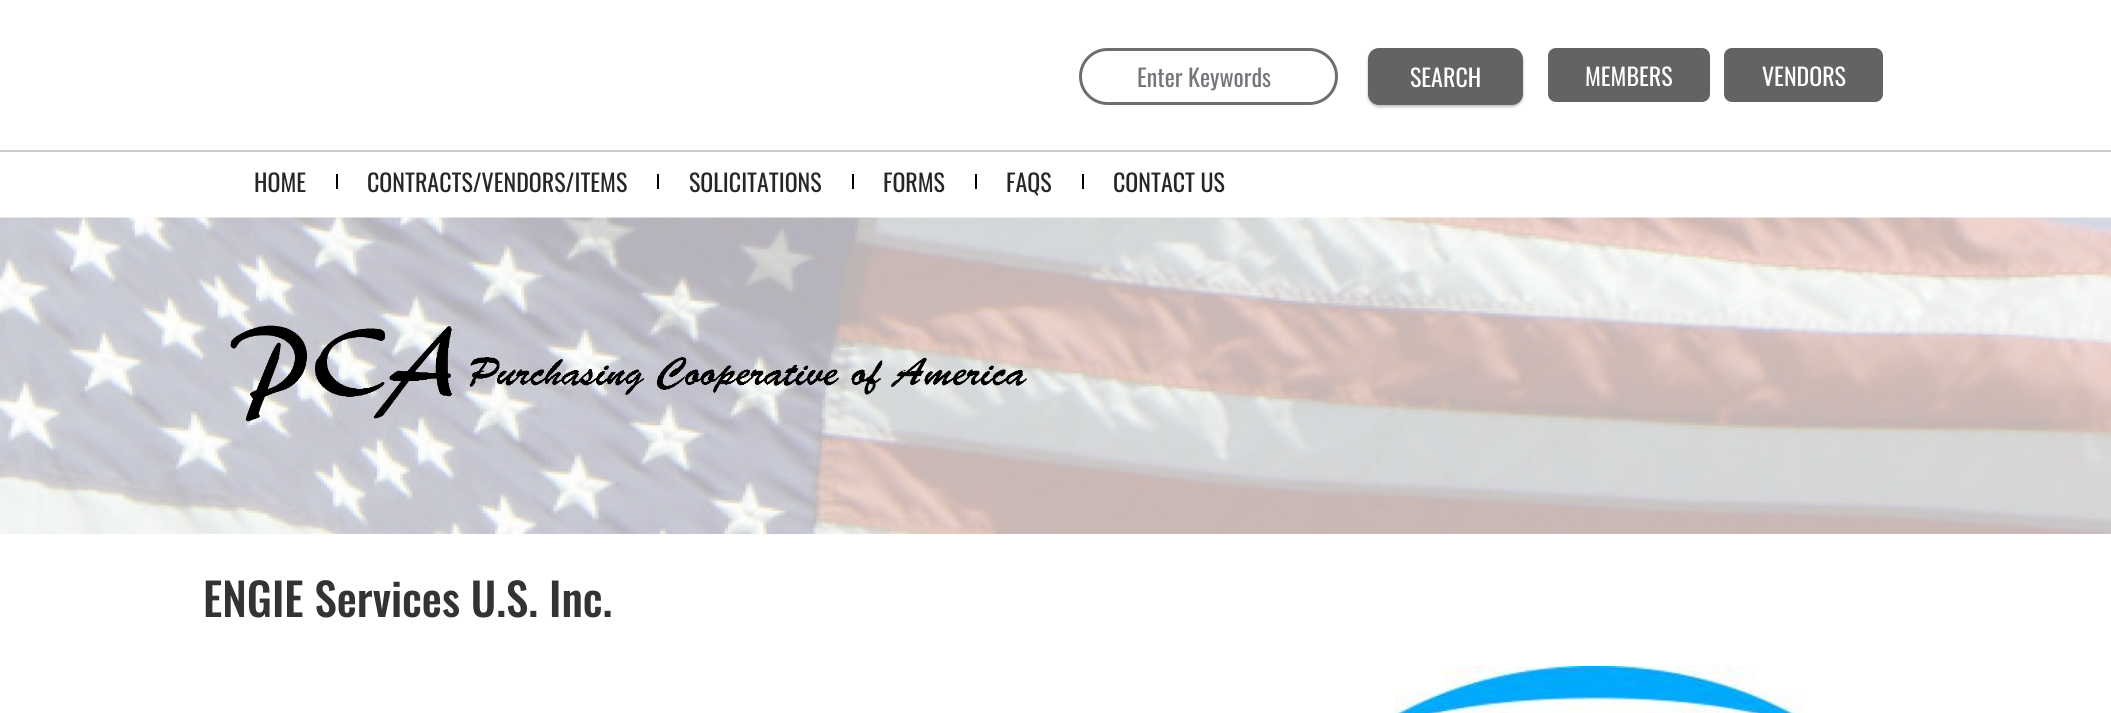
#include <cairo.h>
#include <math.h>
#include <stddef.h>


static void round_rect(cairo_t *cr, double x, double y, double w, double h, double r) {
    cairo_new_sub_path(cr);
    cairo_arc(cr, x + w - r, y + h - r, r, 0, M_PI / 2);
    cairo_arc(cr, x + r, y + h - r, r, M_PI / 2, M_PI);
    cairo_arc(cr, x + r, y + r, r, M_PI, 1.5 * M_PI);
    cairo_arc(cr, x + w - r, y + r, r, 1.5 * M_PI, 2 * M_PI);
    cairo_close_path(cr);
}

static void shadow(cairo_t *cr, double x, double y, double w, double h, double r, double blur, double alpha) {
    cairo_push_group_with_content(cr, CAIRO_CONTENT_ALPHA);
    cairo_set_operator(cr, CAIRO_OPERATOR_SOURCE);
    for (int i = 15; i >= -15 && fmin(w, h) + blur * i / 3 > 0; i -= 2) {
        double e = blur * i / 6;
        cairo_set_source_rgba(cr, 0, 0, 0, alpha * erfc((i - 1) / 8.5) / 2);
        round_rect(cr, x - e, y - e, w + 2 * e, h + 2 * e, fmax(0, fmin(r + e + blur * .6, fmin(w, h) / 2 + e)));
        cairo_fill(cr);
    }
    cairo_pattern_t *soft = cairo_pop_group(cr);
    cairo_mask(cr, soft);
    cairo_pattern_destroy(soft);
}

static void picture(cairo_t *cr, const char *path, double x, double y, double w, double h) {
    cairo_surface_t *image = cairo_image_surface_create_from_png(path);
    cairo_save(cr);
    cairo_set_source_surface(cr, image, x, y);
    cairo_rectangle(cr, x, y, w, h);
    cairo_fill(cr);
    cairo_restore(cr);
    cairo_surface_destroy(image);
}

int main(void) {
    cairo_surface_t *surface = cairo_image_surface_create(CAIRO_FORMAT_RGB24, 2111, 713);
    cairo_t *cr = cairo_create(surface);
    cairo_font_options_t *options = cairo_font_options_create();
    cairo_font_options_set_hint_metrics(options, CAIRO_HINT_METRICS_OFF);
    cairo_font_options_set_hint_style(options, CAIRO_HINT_STYLE_NONE);
    cairo_set_font_options(cr, options);
    cairo_set_miter_limit(cr, 4);
    cairo_set_source_rgb(cr, 1, 1, 1);
    cairo_paint(cr);
    round_rect(cr, 1080.5, 49.5, 256, 54, 27);
    cairo_set_source_rgb(cr, 0.443, 0.427, 0.427);
    cairo_set_line_width(cr, 3);
    cairo_stroke(cr);
    cairo_select_font_face(cr, "Oswald", CAIRO_FONT_SLANT_NORMAL, CAIRO_FONT_WEIGHT_NORMAL);
    cairo_set_font_size(cr, 24);
    cairo_set_source_rgb(cr, 0.459, 0.463, 0.482);
    cairo_move_to(cr, 1137, 87);
    cairo_show_text(cr, "Enter Keywords");
    cairo_set_source_rgb(cr, 0, 0, 0);
    shadow(cr, 1368, 50, 155, 57, 11, 1.5, 0.25);
    cairo_set_source_rgb(cr, 0.388, 0.388, 0.388);
    round_rect(cr, 1368, 48, 155, 57, 11);
    cairo_fill(cr);
    cairo_set_source_rgb(cr, 1, 1, 1);
    cairo_move_to(cr, 1410, 87);
    cairo_show_text(cr, "SEARCH");
    cairo_set_source_rgb(cr, 0.388, 0.388, 0.388);
    round_rect(cr, 1548, 48, 162, 54, 8);
    cairo_fill(cr);
    cairo_set_source_rgb(cr, 1, 1, 1);
    cairo_move_to(cr, 1585, 86);
    cairo_show_text(cr, "MEMBERS");
    cairo_set_source_rgb(cr, 0.388, 0.388, 0.388);
    round_rect(cr, 1724, 48, 159, 54, 8);
    cairo_fill(cr);
    cairo_set_source_rgb(cr, 1, 1, 1);
    cairo_move_to(cr, 1762, 86);
    cairo_show_text(cr, "VENDORS");
    cairo_set_source_rgb(cr, 0.8, 0.8, 0.8);
    cairo_rectangle(cr, 0, 150, 2111, 2);
    cairo_fill(cr);
    cairo_set_source_rgb(cr, 0, 0, 0);
    cairo_rectangle(cr, 336, 174, 2, 15);
    cairo_fill(cr);
    cairo_set_source_rgb(cr, 0.161, 0.145, 0.149);
    cairo_move_to(cr, 254, 192);
    cairo_show_text(cr, "HOME");
    cairo_set_source_rgb(cr, 0, 0, 0);
    cairo_rectangle(cr, 657, 174, 2, 15);
    cairo_fill(cr);
    cairo_set_source_rgb(cr, 0.161, 0.145, 0.149);
    cairo_move_to(cr, 367, 192);
    cairo_show_text(cr, "CONTRACTS/VENDORS/ITEMS");
    cairo_set_source_rgb(cr, 0, 0, 0);
    cairo_rectangle(cr, 852, 174, 2, 15);
    cairo_fill(cr);
    cairo_set_source_rgb(cr, 0.161, 0.145, 0.149);
    cairo_move_to(cr, 689, 192);
    cairo_show_text(cr, "SOLICITATIONS");
    cairo_set_source_rgb(cr, 0, 0, 0);
    cairo_rectangle(cr, 975, 174, 2, 15);
    cairo_fill(cr);
    cairo_set_source_rgb(cr, 0.161, 0.145, 0.149);
    cairo_move_to(cr, 883, 192);
    cairo_show_text(cr, "FORMS");
    cairo_set_source_rgb(cr, 0, 0, 0);
    cairo_rectangle(cr, 1082, 174, 2, 15);
    cairo_fill(cr);
    cairo_set_source_rgb(cr, 0.161, 0.145, 0.149);
    cairo_move_to(cr, 1006, 192);
    cairo_show_text(cr, "FAQS");
    cairo_move_to(cr, 1113, 192);
    cairo_show_text(cr, "CONTACT US");
    picture(cr, "img1.png", 0, 217, 2111, 317);
    picture(cr, "img2.png", 230, 325, 797, 97);
    cairo_select_font_face(cr, "Oswald Medium", CAIRO_FONT_SLANT_NORMAL, CAIRO_FONT_WEIGHT_NORMAL);
    cairo_set_font_size(cr, 45);
    cairo_set_source_rgb(cr, 0.2, 0.2, 0.2);
    cairo_move_to(cr, 203, 617);
    cairo_show_text(cr, "ENGIE Services U.S. Inc.");
    picture(cr, "img3.png", 1394, 666, 410, 47);
    cairo_surface_write_to_png(surface, "page.png");
    cairo_font_options_destroy(options);
    cairo_destroy(cr);
    cairo_surface_destroy(surface);
    return 0;
}
